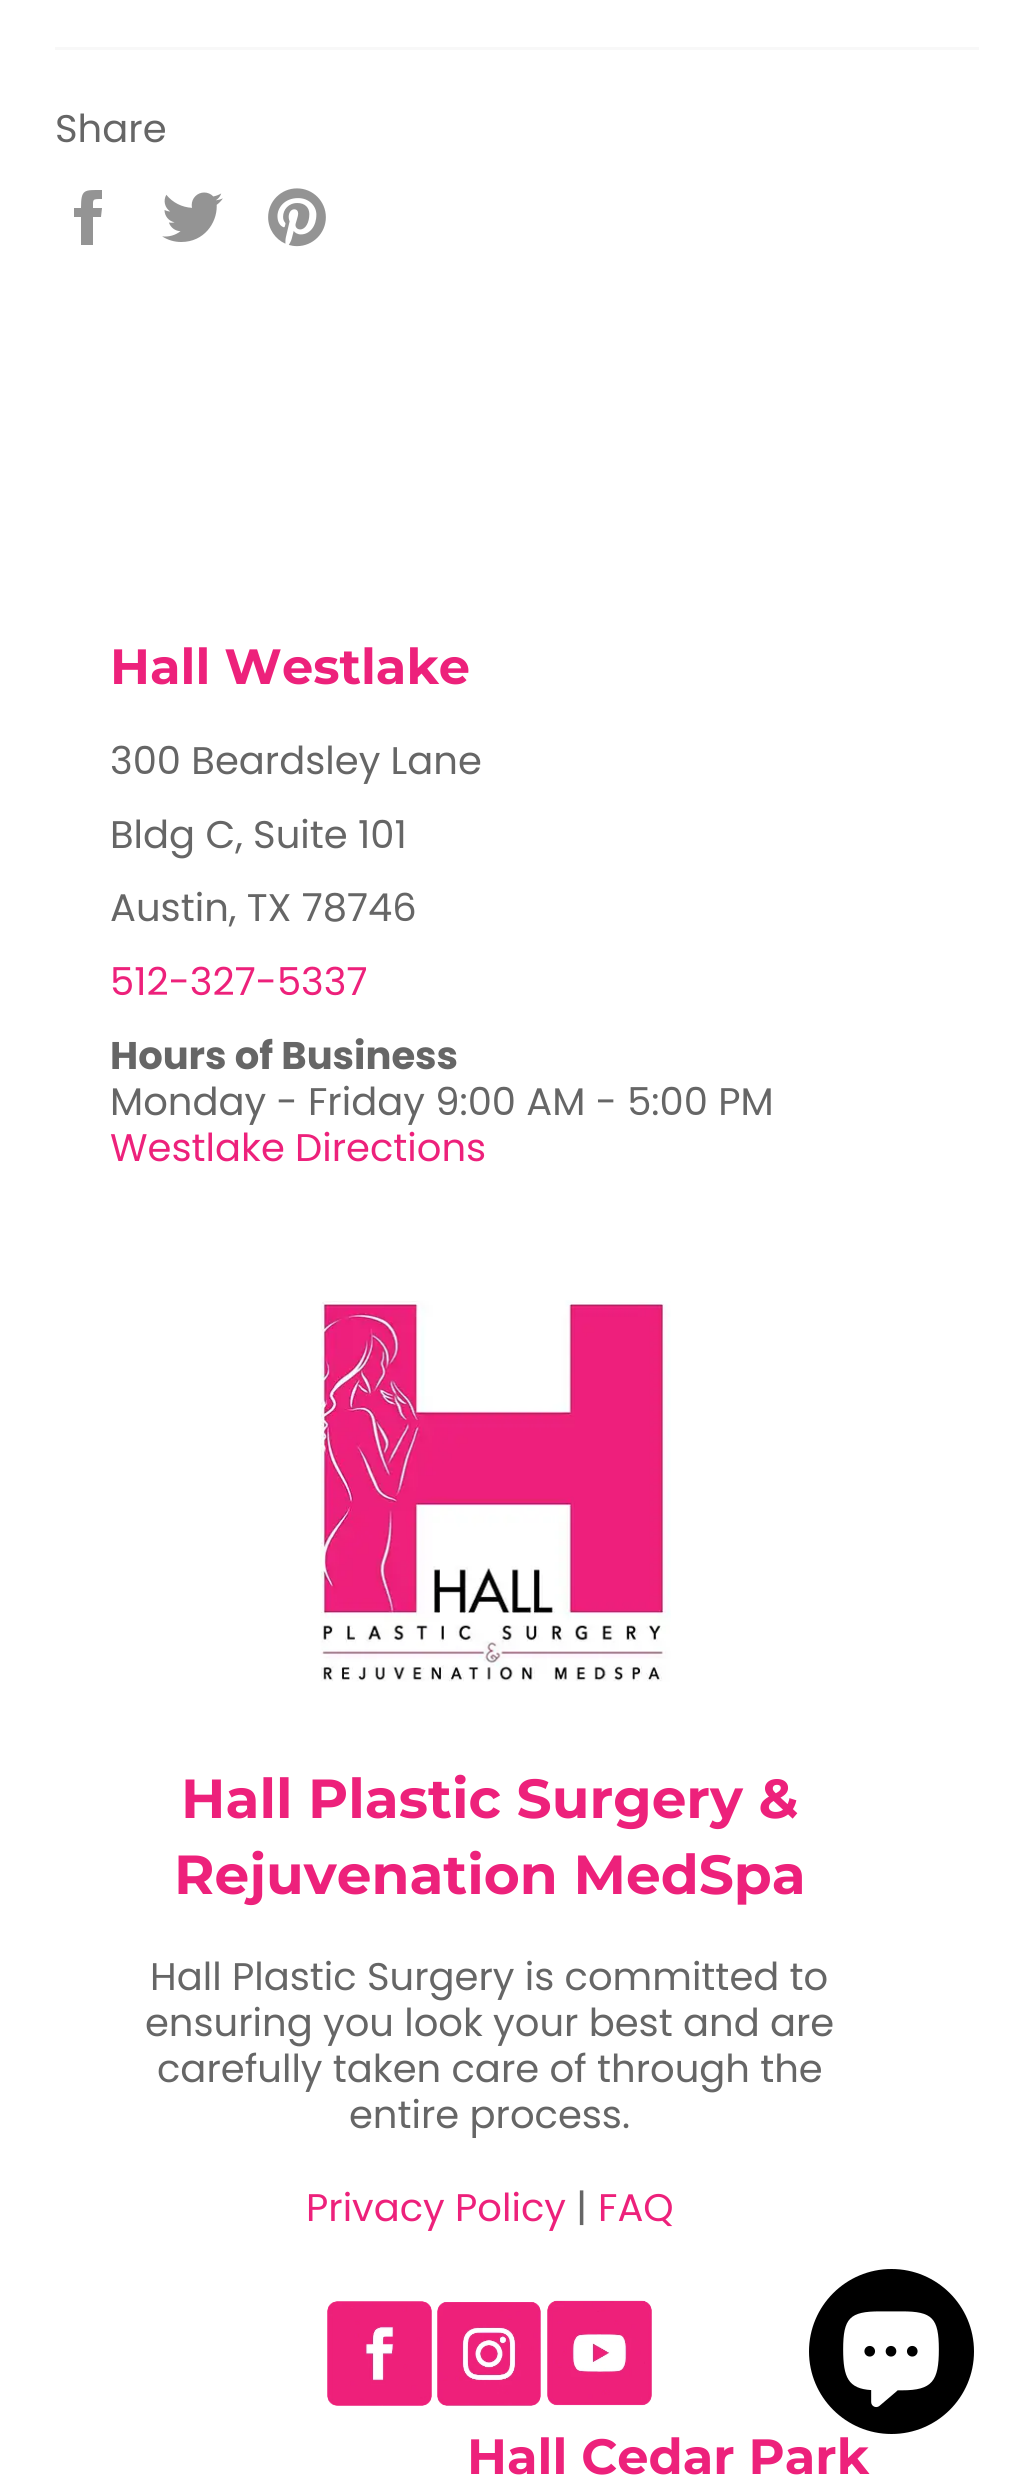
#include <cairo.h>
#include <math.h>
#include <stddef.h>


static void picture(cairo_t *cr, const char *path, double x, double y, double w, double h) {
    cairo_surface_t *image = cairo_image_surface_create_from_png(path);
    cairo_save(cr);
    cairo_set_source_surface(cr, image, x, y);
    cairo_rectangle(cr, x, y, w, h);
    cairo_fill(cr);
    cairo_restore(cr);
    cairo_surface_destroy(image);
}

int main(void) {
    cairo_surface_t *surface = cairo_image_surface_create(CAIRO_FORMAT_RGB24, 1032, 2489);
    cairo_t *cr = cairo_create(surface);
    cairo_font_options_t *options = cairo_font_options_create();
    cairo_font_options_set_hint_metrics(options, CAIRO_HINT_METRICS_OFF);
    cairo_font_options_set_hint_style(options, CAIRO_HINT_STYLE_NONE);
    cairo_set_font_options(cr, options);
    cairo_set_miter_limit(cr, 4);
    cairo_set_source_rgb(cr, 1, 1, 1);
    cairo_paint(cr);
    cairo_set_source_rgb(cr, 0.969, 0.969, 0.969);
    cairo_rectangle(cr, 55, 47, 924, 3);
    cairo_fill(cr);
    cairo_select_font_face(cr, "Poppins", CAIRO_FONT_SLANT_NORMAL, CAIRO_FONT_WEIGHT_NORMAL);
    cairo_set_font_size(cr, 38.5);
    cairo_set_source_rgb(cr, 0.4, 0.4, 0.4);
    cairo_move_to(cr, 55, 142);
    cairo_show_text(cr, "Share");
    cairo_set_source_rgb(cr, 0.58, 0.58, 0.58);
    cairo_new_path(cr);
    cairo_move_to(cr, 93, 208);
    cairo_curve_to(cr, 93, 199, 92, 199, 102, 199);
    cairo_line_to(cr, 102, 190);
    cairo_curve_to(cr, 84, 190, 81, 189, 81, 208);
    cairo_line_to(cr, 74, 208);
    cairo_line_to(cr, 74, 217);
    cairo_line_to(cr, 81, 217);
    cairo_line_to(cr, 81, 245);
    cairo_line_to(cr, 93, 245);
    cairo_line_to(cr, 93, 217);
    cairo_line_to(cr, 101, 217);
    cairo_line_to(cr, 102, 208);
    cairo_close_path(cr);
    cairo_fill(cr);
    picture(cr, "img1.png", 162, 192, 61, 50);
    picture(cr, "img2.png", 268, 188, 58, 59);
    cairo_select_font_face(cr, "Montserrat", CAIRO_FONT_SLANT_NORMAL, CAIRO_FONT_WEIGHT_BOLD);
    cairo_set_font_size(cr, 49.5);
    cairo_set_source_rgb(cr, 0.929, 0.129, 0.482);
    cairo_move_to(cr, 110, 684);
    cairo_show_text(cr, "Hall Westlake");
    cairo_select_font_face(cr, "Poppins", CAIRO_FONT_SLANT_NORMAL, CAIRO_FONT_WEIGHT_NORMAL);
    cairo_set_font_size(cr, 38.5);
    cairo_set_source_rgb(cr, 0.4, 0.4, 0.4);
    cairo_move_to(cr, 110, 774);
    cairo_show_text(cr, "300 Beardsley Lane");
    cairo_move_to(cr, 110, 848);
    cairo_show_text(cr, "Bldg C, Suite 101");
    cairo_move_to(cr, 110, 921);
    cairo_show_text(cr, "Austin, TX 78746");
    cairo_set_source_rgb(cr, 0.929, 0.129, 0.482);
    cairo_move_to(cr, 110, 995);
    cairo_show_text(cr, "512-327-5337");
    cairo_select_font_face(cr, "Poppins", CAIRO_FONT_SLANT_NORMAL, CAIRO_FONT_WEIGHT_BOLD);
    cairo_set_source_rgb(cr, 0.4, 0.4, 0.4);
    cairo_move_to(cr, 110, 1069);
    cairo_show_text(cr, "Hours of Business");
    cairo_select_font_face(cr, "Poppins", CAIRO_FONT_SLANT_NORMAL, CAIRO_FONT_WEIGHT_NORMAL);
    cairo_move_to(cr, 110, 1115);
    cairo_show_text(cr, "Monday - Friday 9:00 AM - 5:00 PM");
    cairo_set_source_rgb(cr, 0.929, 0.129, 0.482);
    cairo_move_to(cr, 110, 1161);
    cairo_show_text(cr, "Westlake Directions");
    picture(cr, "img3.png", 320, 1300, 351, 382);
    cairo_select_font_face(cr, "Montserrat", CAIRO_FONT_SLANT_NORMAL, CAIRO_FONT_WEIGHT_BOLD);
    cairo_set_font_size(cr, 55);
    cairo_move_to(cr, 181, 1818);
    cairo_show_text(cr, "Hall Plastic Surgery &");
    cairo_move_to(cr, 174, 1894);
    cairo_show_text(cr, "Rejuvenation MedSpa");
    cairo_select_font_face(cr, "Poppins", CAIRO_FONT_SLANT_NORMAL, CAIRO_FONT_WEIGHT_NORMAL);
    cairo_set_font_size(cr, 38.5);
    cairo_set_source_rgb(cr, 0.4, 0.4, 0.4);
    cairo_move_to(cr, 150, 1990);
    cairo_show_text(cr, "Hall Plastic Surgery is committed to");
    cairo_move_to(cr, 145, 2036);
    cairo_show_text(cr, "ensuring you look your best and are");
    cairo_move_to(cr, 157, 2082);
    cairo_show_text(cr, "carefully taken care of through the");
    cairo_move_to(cr, 349, 2128);
    cairo_show_text(cr, "entire process.");
    cairo_set_source_rgb(cr, 0.929, 0.129, 0.482);
    cairo_move_to(cr, 306, 2221);
    cairo_show_text(cr, "Privacy Policy");
    cairo_set_source_rgb(cr, 0.4, 0.4, 0.4);
    cairo_move_to(cr, 576, 2221);
    cairo_show_text(cr, "|");
    cairo_set_source_rgb(cr, 0.929, 0.129, 0.482);
    cairo_move_to(cr, 598, 2221);
    cairo_show_text(cr, "FAQ");
    picture(cr, "img4.png", 327, 2301, 105, 105);
    picture(cr, "img5.png", 437, 2302, 104, 104);
    picture(cr, "img6.png", 547, 2300, 105, 106);
    cairo_select_font_face(cr, "Montserrat", CAIRO_FONT_SLANT_NORMAL, CAIRO_FONT_WEIGHT_BOLD);
    cairo_set_font_size(cr, 49.5);
    cairo_move_to(cr, 467, 2474);
    cairo_show_text(cr, "Hall Cedar Park");
    cairo_set_source_rgb(cr, 0, 0, 0);
    cairo_new_path(cr);
    cairo_arc(cr, 891.5, 2351.5, 82.5, 0, 2 * M_PI);
    cairo_fill(cr);
    picture(cr, "img7.png", 843, 2311, 96, 97);
    cairo_surface_write_to_png(surface, "page.png");
    cairo_font_options_destroy(options);
    cairo_destroy(cr);
    cairo_surface_destroy(surface);
    return 0;
}
